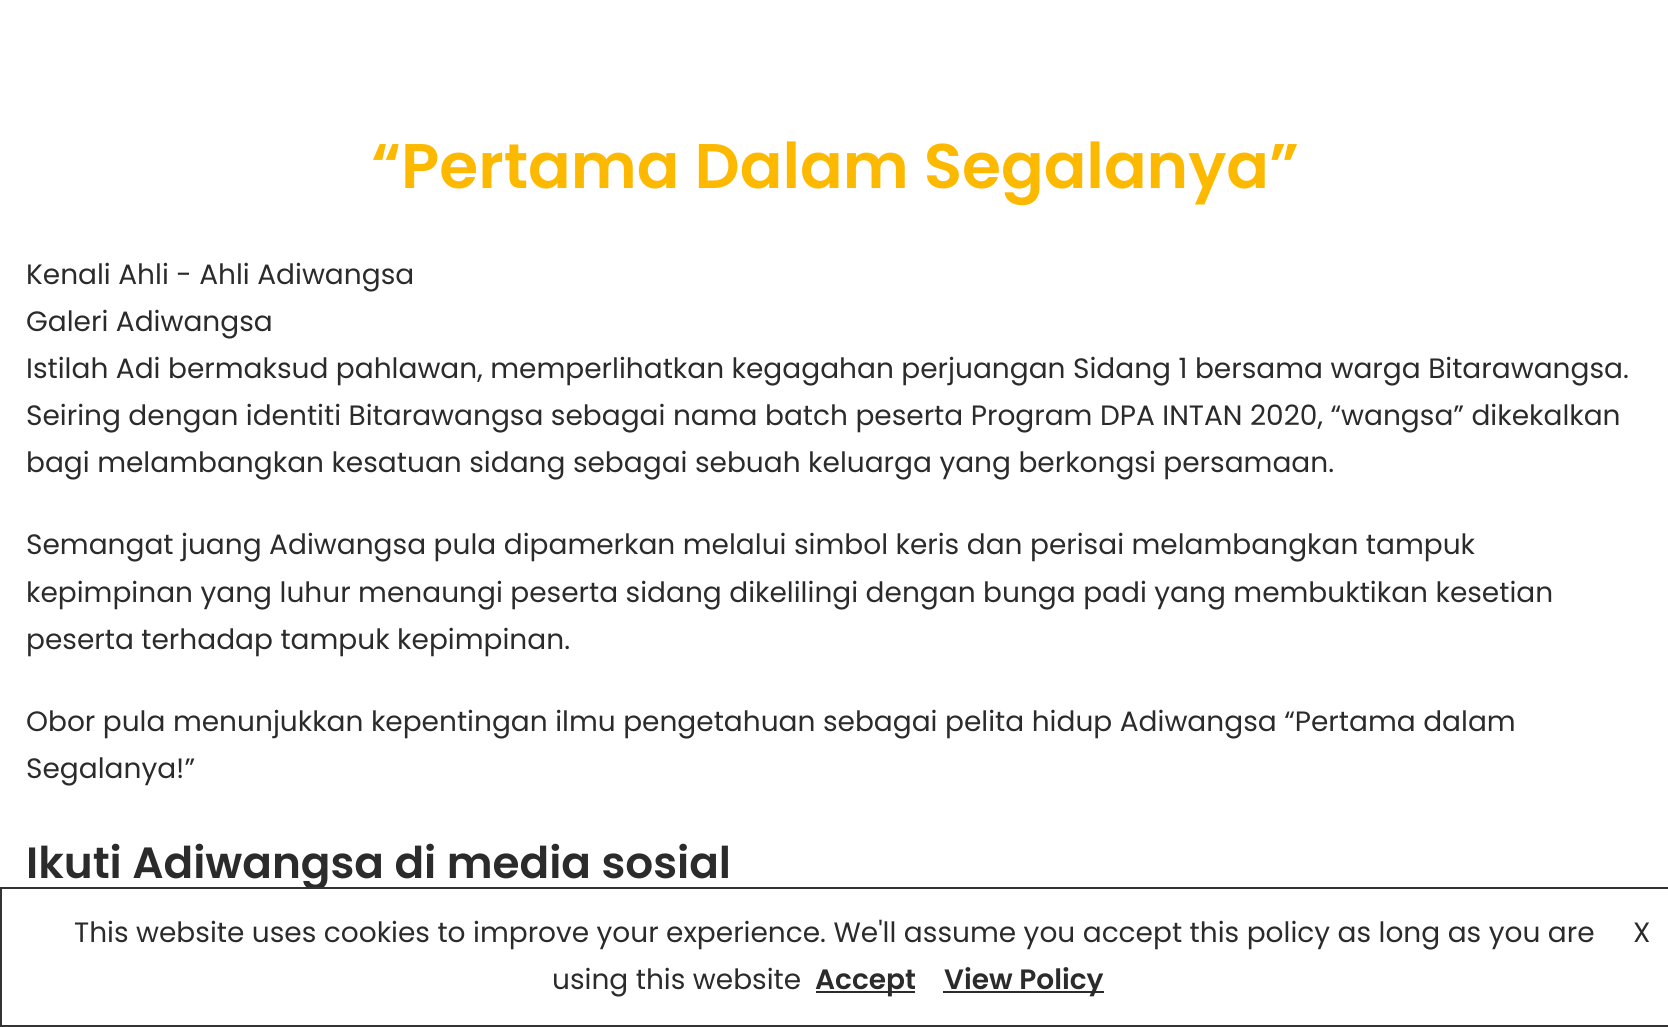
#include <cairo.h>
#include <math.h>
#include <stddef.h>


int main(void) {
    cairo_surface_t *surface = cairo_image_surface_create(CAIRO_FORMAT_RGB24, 1668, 1027);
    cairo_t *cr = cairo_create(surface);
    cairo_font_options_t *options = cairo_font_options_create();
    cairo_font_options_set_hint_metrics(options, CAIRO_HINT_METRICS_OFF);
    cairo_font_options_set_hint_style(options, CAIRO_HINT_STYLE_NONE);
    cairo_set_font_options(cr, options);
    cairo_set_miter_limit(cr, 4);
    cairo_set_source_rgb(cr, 1, 1, 1);
    cairo_paint(cr);
    cairo_select_font_face(cr, "Poppins SemiBold", CAIRO_FONT_SLANT_NORMAL, CAIRO_FONT_WEIGHT_NORMAL);
    cairo_set_font_size(cr, 63);
    cairo_set_source_rgb(cr, 0.988, 0.725, 0);
    cairo_move_to(cr, 371, 188);
    cairo_show_text(cr, "“Pertama Dalam Segalanya”");
    cairo_select_font_face(cr, "Poppins", CAIRO_FONT_SLANT_NORMAL, CAIRO_FONT_WEIGHT_NORMAL);
    cairo_set_font_size(cr, 28);
    cairo_set_source_rgb(cr, 0.169, 0.169, 0.169);
    cairo_move_to(cr, 26, 284);
    cairo_show_text(cr, "Kenali Ahli - Ahli Adiwangsa");
    cairo_move_to(cr, 26, 331);
    cairo_show_text(cr, "Galeri Adiwangsa");
    cairo_move_to(cr, 26, 378);
    cairo_show_text(cr, "Istilah Adi bermaksud pahlawan, memperlihatkan kegagahan perjuangan Sidang 1 bersama warga Bitarawangsa.");
    cairo_move_to(cr, 26, 425);
    cairo_show_text(cr, "Seiring dengan identiti Bitarawangsa sebagai nama batch peserta Program DPA INTAN 2020, “wangsa” dikekalkan");
    cairo_move_to(cr, 26, 472);
    cairo_show_text(cr, "bagi melambangkan kesatuan sidang sebagai sebuah keluarga yang berkongsi persamaan.");
    cairo_move_to(cr, 26, 554);
    cairo_show_text(cr, "Semangat juang Adiwangsa pula dipamerkan melalui simbol keris dan perisai melambangkan tampuk");
    cairo_move_to(cr, 26, 602);
    cairo_show_text(cr, "kepimpinan yang luhur menaungi peserta sidang dikelilingi dengan bunga padi yang membuktikan kesetian");
    cairo_move_to(cr, 26, 649);
    cairo_show_text(cr, "peserta terhadap tampuk kepimpinan.");
    cairo_move_to(cr, 26, 731);
    cairo_show_text(cr, "Obor pula menunjukkan kepentingan ilmu pengetahuan sebagai pelita hidup Adiwangsa “Pertama dalam");
    cairo_move_to(cr, 26, 778);
    cairo_show_text(cr, "Segalanya!”");
    cairo_select_font_face(cr, "Poppins SemiBold", CAIRO_FONT_SLANT_NORMAL, CAIRO_FONT_WEIGHT_NORMAL);
    cairo_set_font_size(cr, 43.75);
    cairo_move_to(cr, 26, 878);
    cairo_show_text(cr, "Ikuti Adiwangsa di media sosial");
    cairo_set_source_rgb(cr, 1, 1, 1);
    cairo_rectangle(cr, 310, 889, 11, 1);
    cairo_fill(cr);
    cairo_rectangle(cr, 1, 888, 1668, 138);
    cairo_set_source_rgb(cr, 0.2, 0.2, 0.2);
    cairo_stroke(cr);
    cairo_select_font_face(cr, "Poppins", CAIRO_FONT_SLANT_NORMAL, CAIRO_FONT_WEIGHT_NORMAL);
    cairo_set_font_size(cr, 28);
    cairo_set_source_rgb(cr, 0.169, 0.169, 0.169);
    cairo_move_to(cr, 74, 942);
    cairo_show_text(cr, "This website uses cookies to improve your experience. We'll assume you accept this policy as long as you are");
    cairo_move_to(cr, 1633, 942);
    cairo_show_text(cr, "X");
    cairo_move_to(cr, 552, 989);
    cairo_show_text(cr, "using this website");
    cairo_rectangle(cr, 816, 991, 99, 2);
    cairo_fill(cr);
    cairo_select_font_face(cr, "Poppins SemiBold", CAIRO_FONT_SLANT_NORMAL, CAIRO_FONT_WEIGHT_NORMAL);
    cairo_move_to(cr, 815, 989);
    cairo_show_text(cr, "Accept");
    cairo_rectangle(cr, 943, 991, 161, 2);
    cairo_fill(cr);
    cairo_move_to(cr, 944, 989);
    cairo_show_text(cr, "View Policy");
    cairo_surface_write_to_png(surface, "page.png");
    cairo_font_options_destroy(options);
    cairo_destroy(cr);
    cairo_surface_destroy(surface);
    return 0;
}
